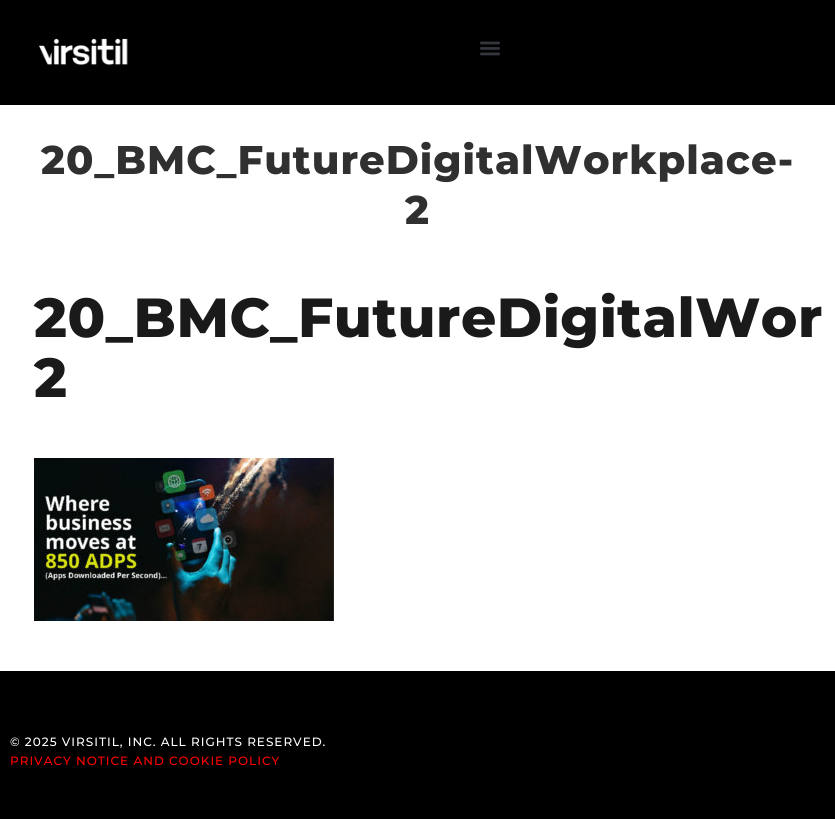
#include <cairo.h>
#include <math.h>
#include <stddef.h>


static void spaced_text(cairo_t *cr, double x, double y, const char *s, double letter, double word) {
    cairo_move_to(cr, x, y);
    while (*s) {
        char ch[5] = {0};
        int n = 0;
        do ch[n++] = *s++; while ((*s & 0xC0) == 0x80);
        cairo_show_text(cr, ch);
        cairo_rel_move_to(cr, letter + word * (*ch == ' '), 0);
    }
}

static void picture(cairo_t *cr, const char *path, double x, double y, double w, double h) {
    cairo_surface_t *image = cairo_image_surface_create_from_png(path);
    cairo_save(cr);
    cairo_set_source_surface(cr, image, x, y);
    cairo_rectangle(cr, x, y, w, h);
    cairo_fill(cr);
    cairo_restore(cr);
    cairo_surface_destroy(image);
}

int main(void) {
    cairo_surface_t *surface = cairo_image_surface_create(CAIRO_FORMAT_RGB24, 835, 819);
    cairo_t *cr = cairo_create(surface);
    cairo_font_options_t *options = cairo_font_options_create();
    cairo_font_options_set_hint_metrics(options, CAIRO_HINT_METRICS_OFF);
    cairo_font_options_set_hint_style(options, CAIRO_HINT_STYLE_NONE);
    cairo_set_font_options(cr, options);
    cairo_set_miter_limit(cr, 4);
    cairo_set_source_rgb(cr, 1, 1, 1);
    cairo_paint(cr);
    cairo_set_source_rgb(cr, 0, 0, 0);
    cairo_rectangle(cr, 0, 0, 835, 105);
    cairo_fill(cr);
    picture(cr, "img1.png", 39, 38, 89, 28);
    picture(cr, "img2.png", 480, 41, 20, 15);
    cairo_select_font_face(cr, "Montserrat ExtraBold", CAIRO_FONT_SLANT_NORMAL, CAIRO_FONT_WEIGHT_NORMAL);
    cairo_set_font_size(cr, 40);
    cairo_set_source_rgb(cr, 0.188, 0.188, 0.188);
    spaced_text(cr, 41, 174, "20_BMC_FutureDigitalWorkplace-", 1, 0);
    spaced_text(cr, 405, 224, "2", 1, 0);
    cairo_set_font_size(cr, 55);
    cairo_set_source_rgb(cr, 0.106, 0.102, 0.102);
    spaced_text(cr, 34, 337, "20_BMC_FutureDigitalWor", 0.5, 0);
    spaced_text(cr, 34, 397, "2", 0.5, 0);
    picture(cr, "img3.png", 34, 458, 300, 163);
    cairo_set_source_rgb(cr, 0, 0, 0);
    cairo_rectangle(cr, 0, 671, 835, 148);
    cairo_fill(cr);
    cairo_select_font_face(cr, "Montserrat Medium", CAIRO_FONT_SLANT_NORMAL, CAIRO_FONT_WEIGHT_NORMAL);
    cairo_set_font_size(cr, 12);
    cairo_set_source_rgb(cr, 1, 1, 1);
    spaced_text(cr, 10, 746, "© 2025 VIRSITIL, INC. ALL RIGHTS RESERVED.", 1, 0);
    cairo_set_source_rgb(cr, 1, 0, 0);
    spaced_text(cr, 10, 765, "PRIVACY NOTICE AND COOKIE POLICY", 1, 0);
    cairo_surface_write_to_png(surface, "page.png");
    cairo_font_options_destroy(options);
    cairo_destroy(cr);
    cairo_surface_destroy(surface);
    return 0;
}
